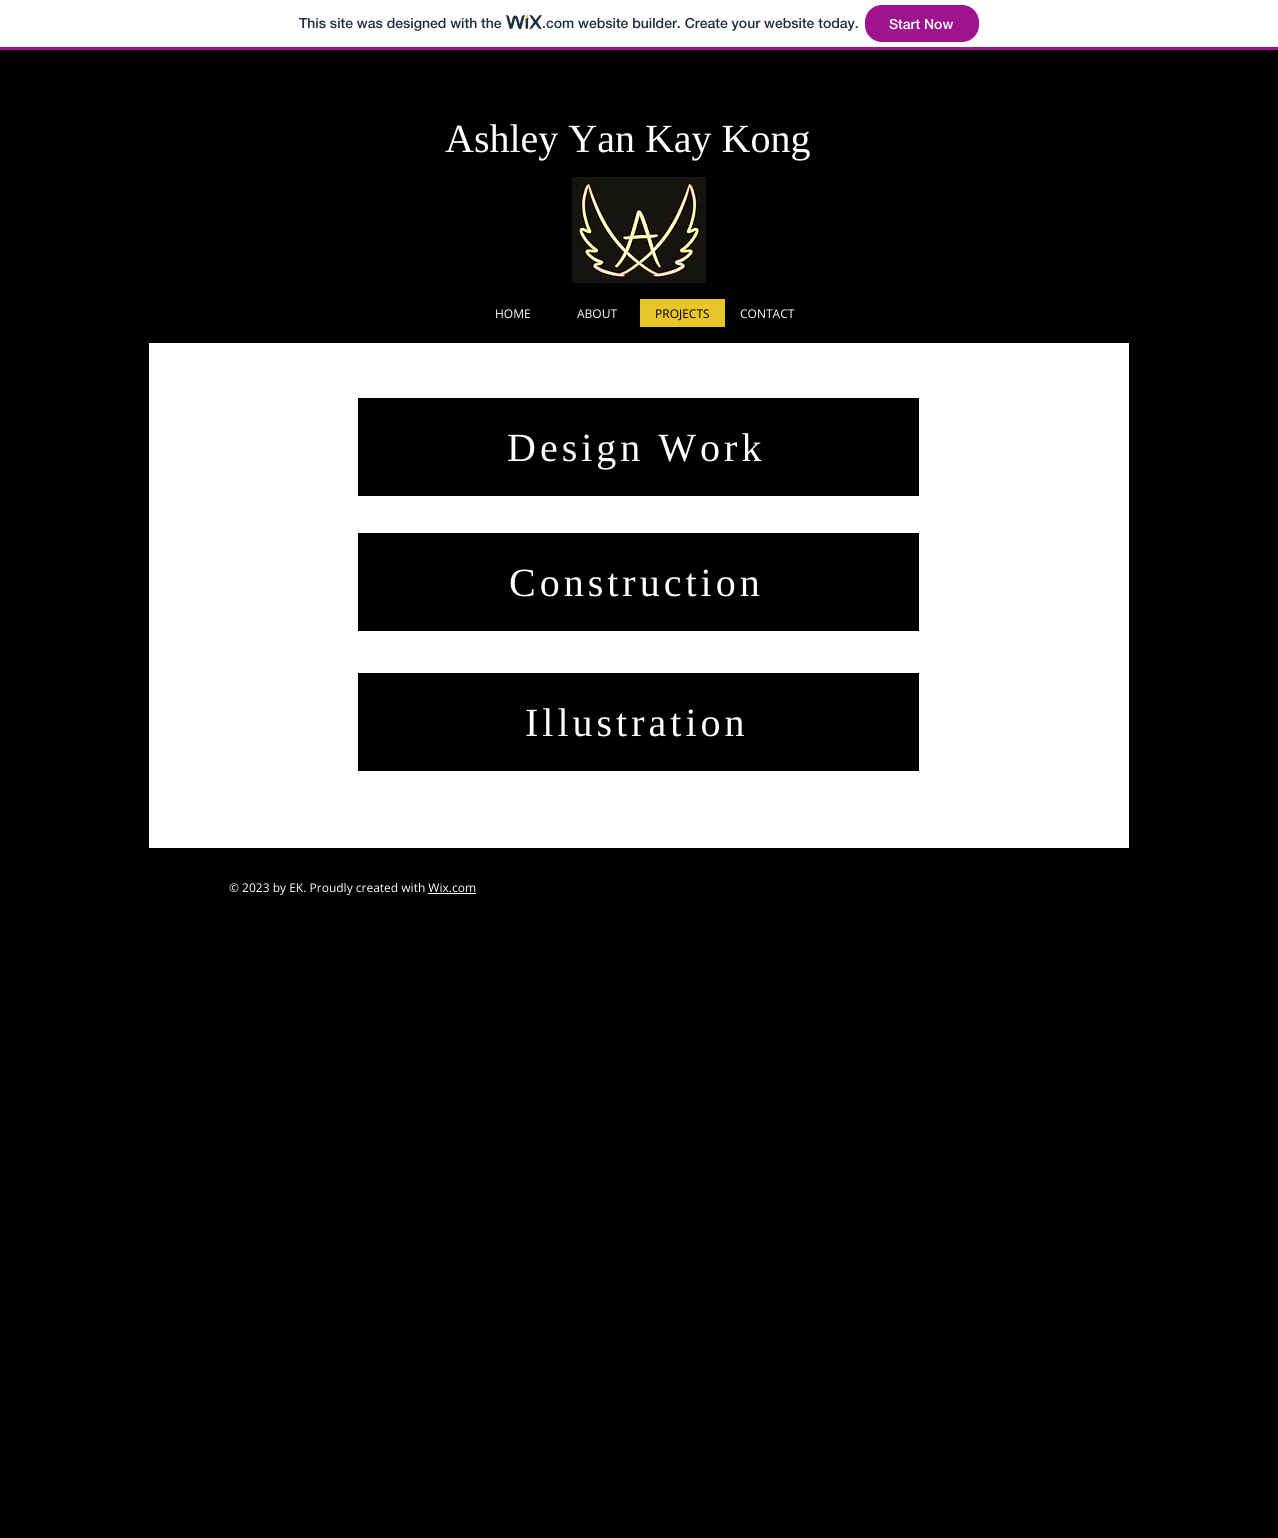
#include <cairo.h>
#include <math.h>
#include <stddef.h>


static void spaced_text(cairo_t *cr, double x, double y, const char *s, double letter, double word) {
    cairo_move_to(cr, x, y);
    while (*s) {
        char ch[5] = {0};
        int n = 0;
        do ch[n++] = *s++; while ((*s & 0xC0) == 0x80);
        cairo_show_text(cr, ch);
        cairo_rel_move_to(cr, letter + word * (*ch == ' '), 0);
    }
}

static void round_rect(cairo_t *cr, double x, double y, double w, double h, double r) {
    cairo_new_sub_path(cr);
    cairo_arc(cr, x + w - r, y + h - r, r, 0, M_PI / 2);
    cairo_arc(cr, x + r, y + h - r, r, M_PI / 2, M_PI);
    cairo_arc(cr, x + r, y + r, r, M_PI, 1.5 * M_PI);
    cairo_arc(cr, x + w - r, y + r, r, 1.5 * M_PI, 2 * M_PI);
    cairo_close_path(cr);
}

static void picture(cairo_t *cr, const char *path, double x, double y, double w, double h) {
    cairo_surface_t *image = cairo_image_surface_create_from_png(path);
    cairo_save(cr);
    cairo_set_source_surface(cr, image, x, y);
    cairo_rectangle(cr, x, y, w, h);
    cairo_fill(cr);
    cairo_restore(cr);
    cairo_surface_destroy(image);
}

int main(void) {
    cairo_surface_t *surface = cairo_image_surface_create(CAIRO_FORMAT_RGB24, 1278, 1538);
    cairo_t *cr = cairo_create(surface);
    cairo_font_options_t *options = cairo_font_options_create();
    cairo_font_options_set_hint_metrics(options, CAIRO_HINT_METRICS_OFF);
    cairo_font_options_set_hint_style(options, CAIRO_HINT_STYLE_NONE);
    cairo_set_font_options(cr, options);
    cairo_set_miter_limit(cr, 4);
    cairo_set_source_rgb(cr, 1, 1, 1);
    cairo_paint(cr);
    cairo_set_source_rgb(cr, 0.627, 0.075, 0.557);
    cairo_rectangle(cr, 0, 47, 1278, 3);
    cairo_fill(cr);
    cairo_select_font_face(cr, "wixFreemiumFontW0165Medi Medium", CAIRO_FONT_SLANT_NORMAL, CAIRO_FONT_WEIGHT_NORMAL);
    cairo_set_font_size(cr, 14);
    cairo_set_source_rgb(cr, 0.125, 0.188, 0.235);
    cairo_move_to(cr, 299, 28);
    cairo_show_text(cr, "This site was designed with the");
    picture(cr, "img1.png", 506, 15, 36, 15);
    cairo_move_to(cr, 542, 28);
    cairo_show_text(cr, ".com website builder. Create your website today.");
    cairo_set_source_rgb(cr, 0.627, 0.075, 0.557);
    round_rect(cr, 865.5, 5.5, 113, 36, 16.5);
    cairo_fill_preserve(cr);
    cairo_set_line_width(cr, 1);
    cairo_stroke(cr);
    cairo_set_source_rgb(cr, 1, 1, 1);
    cairo_move_to(cr, 889, 29);
    cairo_show_text(cr, "Start Now");
    cairo_set_source_rgb(cr, 0, 0, 0);
    cairo_rectangle(cr, 0, 50, 1278, 1488);
    cairo_fill(cr);
    cairo_select_font_face(cr, "Liberation Serif", CAIRO_FONT_SLANT_NORMAL, CAIRO_FONT_WEIGHT_NORMAL);
    cairo_set_font_size(cr, 40);
    cairo_set_source_rgb(cr, 1, 1, 1);
    cairo_move_to(cr, 445, 152);
    cairo_show_text(cr, "Ashley Yan Kay Kong");
    picture(cr, "img2.png", 572, 177, 134, 106);
    cairo_select_font_face(cr, "Open Sans", CAIRO_FONT_SLANT_NORMAL, CAIRO_FONT_WEIGHT_NORMAL);
    cairo_set_font_size(cr, 12);
    cairo_move_to(cr, 495, 318);
    cairo_show_text(cr, "HOME");
    cairo_move_to(cr, 577, 318);
    cairo_show_text(cr, "ABOUT");
    cairo_set_source_rgb(cr, 0.91, 0.773, 0.161);
    cairo_rectangle(cr, 640, 299, 85, 28);
    cairo_fill(cr);
    cairo_set_source_rgb(cr, 0, 0, 0);
    cairo_move_to(cr, 655, 318);
    cairo_show_text(cr, "PROJECTS");
    cairo_set_source_rgb(cr, 1, 1, 1);
    cairo_move_to(cr, 740, 318);
    cairo_show_text(cr, "CONTACT");
    cairo_rectangle(cr, 149, 343, 980, 505);
    cairo_fill(cr);
    cairo_set_source_rgb(cr, 0, 0, 0);
    cairo_rectangle(cr, 358, 398, 561, 98);
    cairo_fill(cr);
    cairo_select_font_face(cr, "Liberation Serif", CAIRO_FONT_SLANT_NORMAL, CAIRO_FONT_WEIGHT_NORMAL);
    cairo_set_font_size(cr, 40);
    cairo_set_source_rgb(cr, 1, 1, 1);
    spaced_text(cr, 507, 461, "Design Work", 4, 0);
    cairo_set_source_rgb(cr, 0, 0, 0);
    cairo_rectangle(cr, 358, 533, 561, 98);
    cairo_fill(cr);
    cairo_set_source_rgb(cr, 1, 1, 1);
    spaced_text(cr, 509, 596, "Construction", 4, 0);
    cairo_set_source_rgb(cr, 0, 0, 0);
    cairo_rectangle(cr, 358, 673, 561, 98);
    cairo_fill(cr);
    cairo_set_source_rgb(cr, 1, 1, 1);
    spaced_text(cr, 525, 736, "Illustration", 4, 0);
    cairo_select_font_face(cr, "Open Sans", CAIRO_FONT_SLANT_NORMAL, CAIRO_FONT_WEIGHT_NORMAL);
    cairo_set_font_size(cr, 12);
    cairo_move_to(cr, 229, 892);
    cairo_show_text(cr, "© 2023 by EK. Proudly created with Wix.com");
    cairo_rectangle(cr, 428, 893, 48, 1);
    cairo_fill(cr);
    cairo_surface_write_to_png(surface, "page.png");
    cairo_font_options_destroy(options);
    cairo_destroy(cr);
    cairo_surface_destroy(surface);
    return 0;
}
